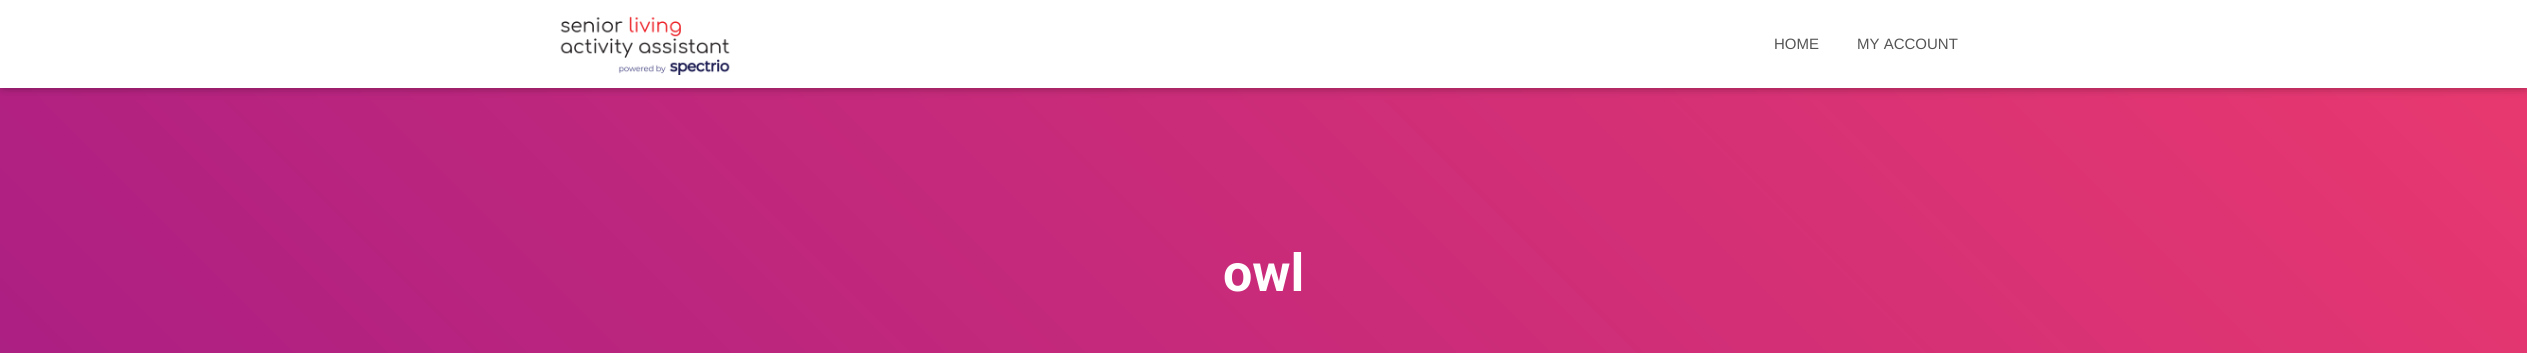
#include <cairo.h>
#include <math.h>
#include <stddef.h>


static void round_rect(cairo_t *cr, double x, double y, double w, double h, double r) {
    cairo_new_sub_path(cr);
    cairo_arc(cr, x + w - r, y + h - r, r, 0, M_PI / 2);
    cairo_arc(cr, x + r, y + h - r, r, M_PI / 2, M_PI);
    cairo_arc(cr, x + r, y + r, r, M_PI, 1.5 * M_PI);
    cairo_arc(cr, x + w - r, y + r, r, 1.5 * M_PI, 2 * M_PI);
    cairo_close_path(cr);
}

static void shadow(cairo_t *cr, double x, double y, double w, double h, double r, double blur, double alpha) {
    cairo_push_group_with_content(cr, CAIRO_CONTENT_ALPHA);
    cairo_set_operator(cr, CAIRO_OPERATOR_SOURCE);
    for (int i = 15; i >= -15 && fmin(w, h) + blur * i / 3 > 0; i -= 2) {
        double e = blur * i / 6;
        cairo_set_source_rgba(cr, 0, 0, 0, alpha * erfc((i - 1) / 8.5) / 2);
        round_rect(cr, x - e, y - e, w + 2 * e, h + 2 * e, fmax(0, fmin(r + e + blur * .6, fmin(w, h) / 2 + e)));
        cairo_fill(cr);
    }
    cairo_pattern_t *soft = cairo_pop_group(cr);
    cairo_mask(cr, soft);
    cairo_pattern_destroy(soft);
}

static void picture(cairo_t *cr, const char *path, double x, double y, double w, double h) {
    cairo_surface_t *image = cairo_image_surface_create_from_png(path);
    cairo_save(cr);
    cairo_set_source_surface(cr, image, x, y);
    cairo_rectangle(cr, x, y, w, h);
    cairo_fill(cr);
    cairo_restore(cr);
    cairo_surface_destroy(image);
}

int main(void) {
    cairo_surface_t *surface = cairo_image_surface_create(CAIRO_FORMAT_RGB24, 2527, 353);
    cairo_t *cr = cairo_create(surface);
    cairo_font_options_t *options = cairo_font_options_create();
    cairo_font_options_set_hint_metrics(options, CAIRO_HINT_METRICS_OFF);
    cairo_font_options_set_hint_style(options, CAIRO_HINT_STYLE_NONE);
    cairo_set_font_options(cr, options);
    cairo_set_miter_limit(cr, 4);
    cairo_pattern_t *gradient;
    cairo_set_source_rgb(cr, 1, 1, 1);
    cairo_paint(cr);
    gradient = cairo_pattern_create_linear(496, 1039, 2031, -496);
    cairo_pattern_add_color_stop_rgba(gradient, 0, 0.659, 0.114, 0.518, 1);
    cairo_pattern_add_color_stop_rgba(gradient, 1, 0.918, 0.224, 0.435, 1);
    cairo_set_source(cr, gradient);
    cairo_pattern_destroy(gradient);
    cairo_rectangle(cr, 0, 88, 2527, 265);
    cairo_fill(cr);
    cairo_set_source_rgb(cr, 0, 0, 0);
    shadow(cr, 3, 8, 2522, 82, 0, 3, 0.1);
    shadow(cr, 0, 1, 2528, 88, 0, 6, 0.12);
    shadow(cr, 8, 9, 2512, 72, 0, 6, 0.42);
    cairo_set_source_rgb(cr, 1, 1, 1);
    cairo_rectangle(cr, 0, 0, 2527, 88);
    cairo_fill(cr);
    picture(cr, "img1.png", 560, 16, 170, 59);
    cairo_select_font_face(cr, "Liberation Sans", CAIRO_FONT_SLANT_NORMAL, CAIRO_FONT_WEIGHT_NORMAL);
    cairo_set_font_size(cr, 15);
    cairo_set_source_rgb(cr, 0.333, 0.333, 0.333);
    cairo_move_to(cr, 1774, 49);
    cairo_show_text(cr, "HOME");
    cairo_move_to(cr, 1857, 49);
    cairo_show_text(cr, "MY ACCOUNT");
    cairo_select_font_face(cr, "Roboto", CAIRO_FONT_SLANT_NORMAL, CAIRO_FONT_WEIGHT_BOLD);
    cairo_set_font_size(cr, 52);
    cairo_set_source_rgb(cr, 1, 1, 1);
    cairo_move_to(cr, 1223, 291);
    cairo_show_text(cr, "owl");
    cairo_surface_write_to_png(surface, "page.png");
    cairo_font_options_destroy(options);
    cairo_destroy(cr);
    cairo_surface_destroy(surface);
    return 0;
}
